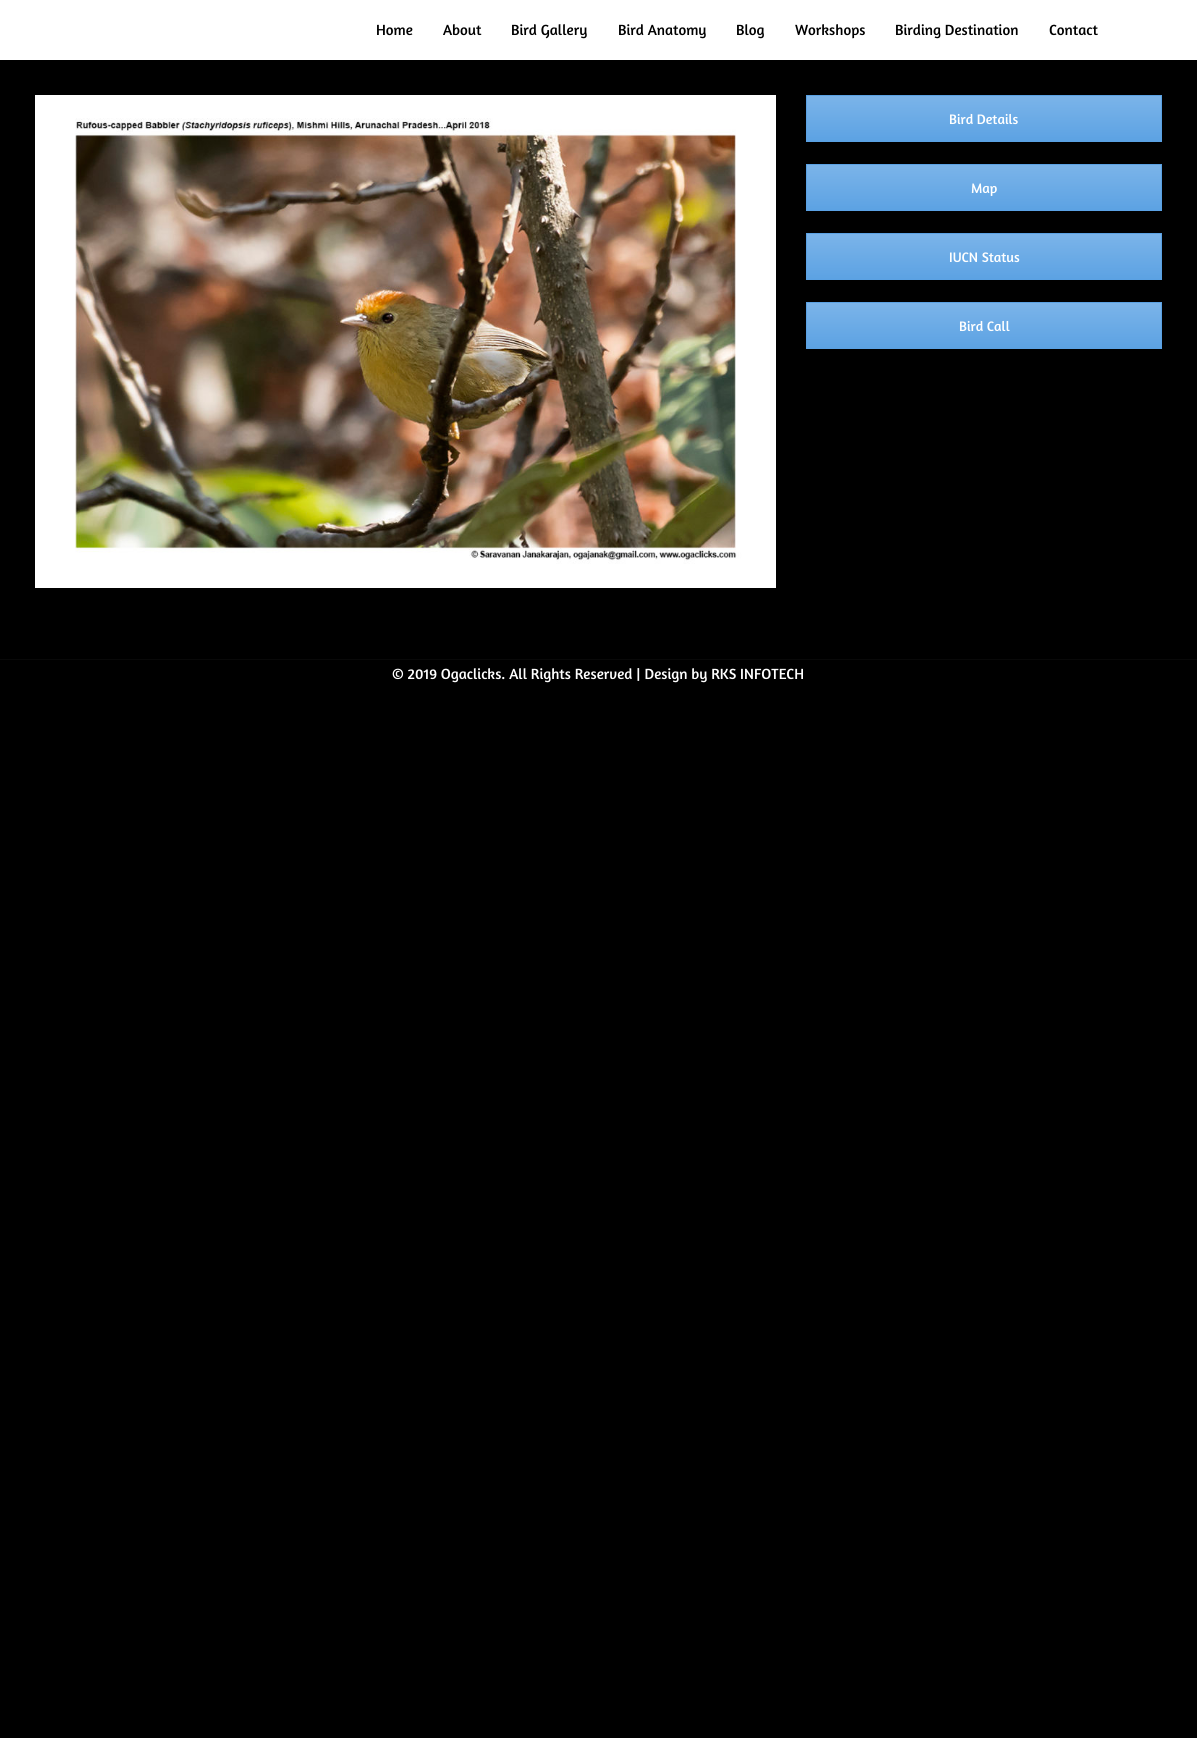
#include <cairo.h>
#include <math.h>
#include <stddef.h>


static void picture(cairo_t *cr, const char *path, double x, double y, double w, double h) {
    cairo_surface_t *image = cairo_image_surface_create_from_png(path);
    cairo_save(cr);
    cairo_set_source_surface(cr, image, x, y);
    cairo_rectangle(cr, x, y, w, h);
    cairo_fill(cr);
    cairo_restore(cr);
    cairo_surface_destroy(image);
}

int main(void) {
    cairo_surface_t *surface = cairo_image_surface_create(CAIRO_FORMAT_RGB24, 1197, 1738);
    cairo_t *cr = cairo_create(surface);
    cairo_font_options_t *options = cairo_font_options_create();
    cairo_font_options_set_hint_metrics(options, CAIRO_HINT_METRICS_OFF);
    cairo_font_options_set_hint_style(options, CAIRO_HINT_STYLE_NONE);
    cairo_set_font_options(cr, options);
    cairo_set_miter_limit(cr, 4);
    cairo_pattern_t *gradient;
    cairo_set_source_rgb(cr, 0, 0, 0);
    cairo_paint(cr);
    cairo_set_source_rgb(cr, 1, 1, 1);
    cairo_rectangle(cr, 0, 0, 1197, 60);
    cairo_fill(cr);
    cairo_select_font_face(cr, "Amaranth", CAIRO_FONT_SLANT_NORMAL, CAIRO_FONT_WEIGHT_NORMAL);
    cairo_set_font_size(cr, 15);
    cairo_set_source_rgb(cr, 0, 0, 0);
    cairo_move_to(cr, 376, 35);
    cairo_show_text(cr, "Home");
    cairo_move_to(cr, 443, 35);
    cairo_show_text(cr, "About");
    cairo_move_to(cr, 511, 35);
    cairo_show_text(cr, "Bird Gallery");
    cairo_move_to(cr, 618, 35);
    cairo_show_text(cr, "Bird Anatomy");
    cairo_move_to(cr, 736, 35);
    cairo_show_text(cr, "Blog");
    cairo_move_to(cr, 795, 35);
    cairo_show_text(cr, "Workshops");
    cairo_move_to(cr, 895, 35);
    cairo_show_text(cr, "Birding Destination");
    cairo_move_to(cr, 1049, 35);
    cairo_show_text(cr, "Contact");
    picture(cr, "img1.png", 35, 95, 741, 493);
    gradient = cairo_pattern_create_linear(984, 96, 984, 141);
    cairo_pattern_add_color_stop_rgba(gradient, 0, 0.482, 0.706, 0.914, 1);
    cairo_pattern_add_color_stop_rgba(gradient, 1, 0.361, 0.635, 0.89, 1);
    cairo_set_source(cr, gradient);
    cairo_pattern_destroy(gradient);
    cairo_rectangle(cr, 807, 96, 354, 45);
    cairo_fill(cr);
    cairo_rectangle(cr, 806.5, 95.5, 355, 46);
    cairo_set_source_rgb(cr, 0.353, 0.631, 0.89);
    cairo_set_line_width(cr, 1);
    cairo_stroke(cr);
    cairo_set_font_size(cr, 14);
    cairo_set_source_rgb(cr, 1, 1, 1);
    cairo_move_to(cr, 949, 124);
    cairo_show_text(cr, "Bird Details");
    gradient = cairo_pattern_create_linear(984, 165, 984, 210);
    cairo_pattern_add_color_stop_rgba(gradient, 0, 0.482, 0.706, 0.914, 1);
    cairo_pattern_add_color_stop_rgba(gradient, 1, 0.361, 0.635, 0.89, 1);
    cairo_set_source(cr, gradient);
    cairo_pattern_destroy(gradient);
    cairo_rectangle(cr, 807, 165, 354, 45);
    cairo_fill(cr);
    cairo_rectangle(cr, 806.5, 164.5, 355, 46);
    cairo_set_source_rgb(cr, 0.353, 0.631, 0.89);
    cairo_stroke(cr);
    cairo_set_source_rgb(cr, 1, 1, 1);
    cairo_move_to(cr, 971, 193);
    cairo_show_text(cr, "Map");
    gradient = cairo_pattern_create_linear(984, 234, 984, 279);
    cairo_pattern_add_color_stop_rgba(gradient, 0, 0.482, 0.706, 0.914, 1);
    cairo_pattern_add_color_stop_rgba(gradient, 1, 0.361, 0.635, 0.89, 1);
    cairo_set_source(cr, gradient);
    cairo_pattern_destroy(gradient);
    cairo_rectangle(cr, 807, 234, 354, 45);
    cairo_fill(cr);
    cairo_rectangle(cr, 806.5, 233.5, 355, 46);
    cairo_set_source_rgb(cr, 0.353, 0.631, 0.89);
    cairo_stroke(cr);
    cairo_set_source_rgb(cr, 1, 1, 1);
    cairo_move_to(cr, 949, 262);
    cairo_show_text(cr, "IUCN Status");
    gradient = cairo_pattern_create_linear(984, 303, 984, 348);
    cairo_pattern_add_color_stop_rgba(gradient, 0, 0.482, 0.706, 0.914, 1);
    cairo_pattern_add_color_stop_rgba(gradient, 1, 0.361, 0.635, 0.89, 1);
    cairo_set_source(cr, gradient);
    cairo_pattern_destroy(gradient);
    cairo_rectangle(cr, 807, 303, 354, 45);
    cairo_fill(cr);
    cairo_rectangle(cr, 806.5, 302.5, 355, 46);
    cairo_set_source_rgb(cr, 0.353, 0.631, 0.89);
    cairo_stroke(cr);
    cairo_set_source_rgb(cr, 1, 1, 1);
    cairo_move_to(cr, 959, 331);
    cairo_show_text(cr, "Bird Call");
    cairo_set_source_rgb(cr, 0.039, 0.039, 0.039);
    cairo_rectangle(cr, 0, 659, 1197, 1);
    cairo_fill(cr);
    cairo_set_font_size(cr, 15);
    cairo_set_source_rgb(cr, 1, 1, 1);
    cairo_move_to(cr, 392, 679);
    cairo_show_text(cr, "© 2019 Ogaclicks. All Rights Reserved | Design by RKS INFOTECH");
    cairo_surface_write_to_png(surface, "page.png");
    cairo_font_options_destroy(options);
    cairo_destroy(cr);
    cairo_surface_destroy(surface);
    return 0;
}
